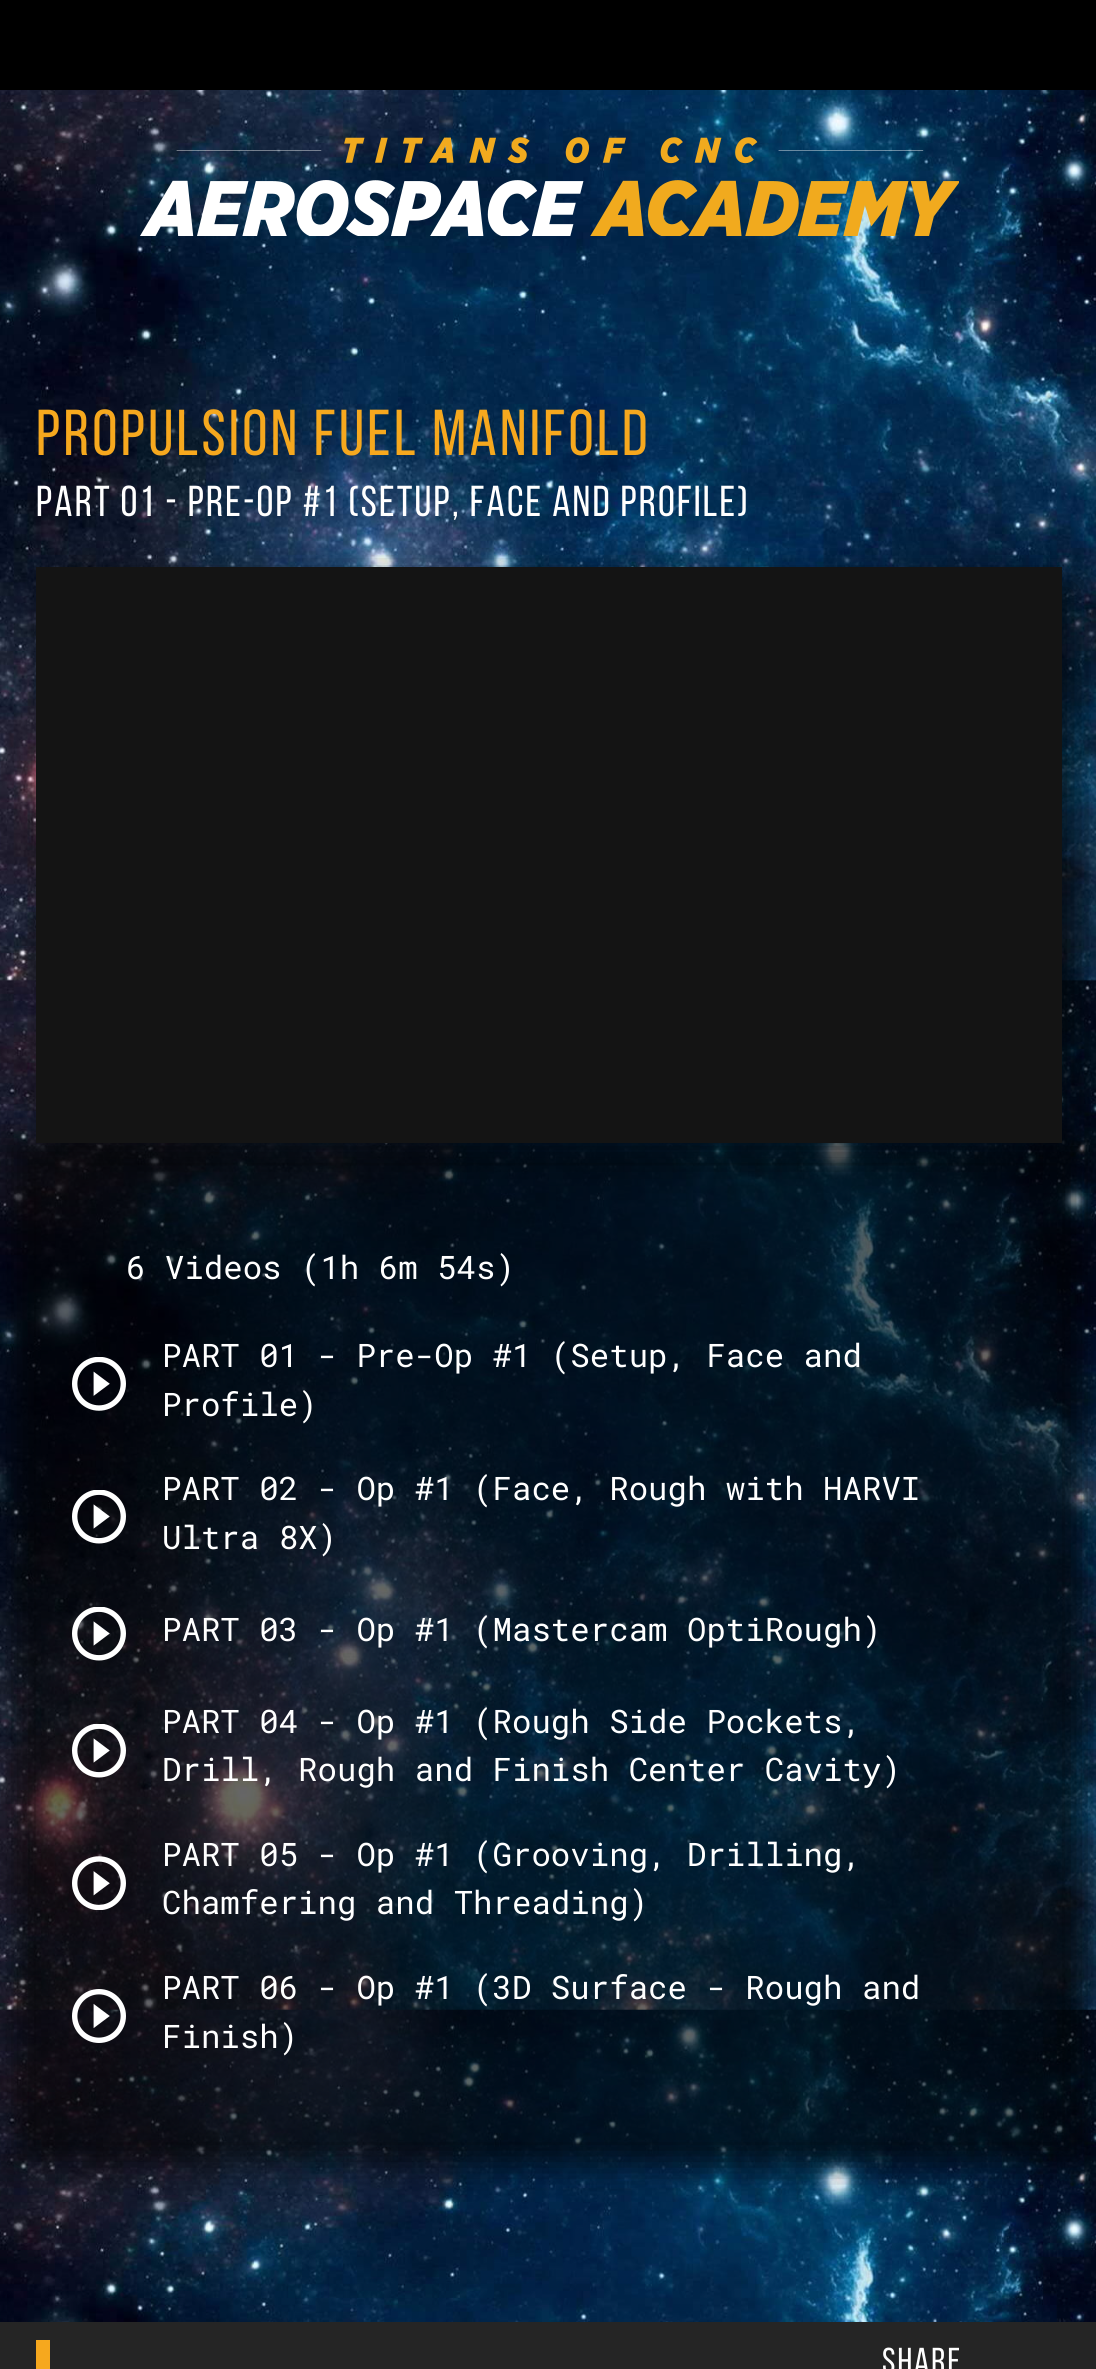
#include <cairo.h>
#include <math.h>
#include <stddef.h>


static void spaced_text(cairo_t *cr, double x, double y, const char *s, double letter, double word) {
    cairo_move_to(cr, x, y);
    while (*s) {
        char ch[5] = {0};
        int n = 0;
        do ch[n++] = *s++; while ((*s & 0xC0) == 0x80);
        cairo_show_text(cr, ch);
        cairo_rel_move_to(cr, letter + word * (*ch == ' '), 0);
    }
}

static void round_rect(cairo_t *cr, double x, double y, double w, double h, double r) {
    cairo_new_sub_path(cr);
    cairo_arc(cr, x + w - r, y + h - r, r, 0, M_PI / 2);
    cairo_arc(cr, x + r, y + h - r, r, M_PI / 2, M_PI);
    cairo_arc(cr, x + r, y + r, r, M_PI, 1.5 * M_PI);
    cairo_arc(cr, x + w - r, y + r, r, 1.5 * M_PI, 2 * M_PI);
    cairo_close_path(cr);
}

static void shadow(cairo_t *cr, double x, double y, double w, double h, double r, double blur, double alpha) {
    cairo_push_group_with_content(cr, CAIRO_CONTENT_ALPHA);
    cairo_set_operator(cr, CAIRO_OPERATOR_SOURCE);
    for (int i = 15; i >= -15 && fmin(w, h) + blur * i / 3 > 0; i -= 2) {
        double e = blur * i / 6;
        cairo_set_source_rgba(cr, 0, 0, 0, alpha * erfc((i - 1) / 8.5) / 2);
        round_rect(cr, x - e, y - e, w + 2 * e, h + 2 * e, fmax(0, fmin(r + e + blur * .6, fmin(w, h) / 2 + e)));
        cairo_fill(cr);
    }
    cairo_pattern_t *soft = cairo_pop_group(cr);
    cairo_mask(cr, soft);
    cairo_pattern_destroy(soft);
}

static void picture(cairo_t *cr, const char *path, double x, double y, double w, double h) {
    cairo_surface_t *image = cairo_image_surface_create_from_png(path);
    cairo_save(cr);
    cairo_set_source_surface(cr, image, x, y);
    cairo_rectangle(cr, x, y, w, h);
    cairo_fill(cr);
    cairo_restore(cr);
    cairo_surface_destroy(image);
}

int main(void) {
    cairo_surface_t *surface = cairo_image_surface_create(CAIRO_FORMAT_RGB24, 1096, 2369);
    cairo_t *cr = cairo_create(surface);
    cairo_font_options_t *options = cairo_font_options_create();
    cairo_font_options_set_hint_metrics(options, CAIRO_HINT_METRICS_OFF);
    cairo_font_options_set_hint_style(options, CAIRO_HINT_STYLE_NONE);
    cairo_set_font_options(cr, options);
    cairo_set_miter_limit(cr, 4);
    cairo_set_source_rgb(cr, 0, 0, 0);
    cairo_paint(cr);
    picture(cr, "img1.png", 0, 90, 1096, 2232);
    picture(cr, "img2.png", 140, 137, 819, 99);
    cairo_select_font_face(cr, "Bebas Neue", CAIRO_FONT_SLANT_NORMAL, CAIRO_FONT_WEIGHT_NORMAL);
    cairo_set_font_size(cr, 64.75);
    cairo_set_source_rgb(cr, 0.961, 0.659, 0.118);
    spaced_text(cr, 36, 455, "PROPULSION FUEL MANIFOLD", 3.25, 0);
    cairo_set_font_size(cr, 43.25);
    cairo_set_source_rgb(cr, 1, 1, 1);
    spaced_text(cr, 36, 516, "PART 01 - PRE-OP #1 (SETUP, FACE AND PROFILE)", 2.15, 0);
    cairo_set_source_rgb(cr, 0, 0, 0);
    shadow(cr, 56, 583, 1022, 571, 0, 21.5, 0.7);
    cairo_save(cr);
    cairo_set_fill_rule(cr, CAIRO_FILL_RULE_EVEN_ODD);
    cairo_new_path(cr);
    cairo_move_to(cr, 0, 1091);
    cairo_line_to(cr, 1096, 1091);
    cairo_line_to(cr, 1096, 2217);
    cairo_line_to(cr, 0, 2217);
    cairo_close_path(cr);
    cairo_move_to(cr, 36, 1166);
    cairo_line_to(cr, 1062, 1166);
    cairo_line_to(cr, 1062, 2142);
    cairo_line_to(cr, 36, 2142);
    cairo_close_path(cr);
    cairo_clip(cr);
    shadow(cr, 14, 1143, 1071, 1022, 0, 17, 0.7);
    cairo_restore(cr);
    cairo_set_source_rgb(cr, 0.082, 0.082, 0.082);
    cairo_rectangle(cr, 36, 567, 1026, 576);
    cairo_fill(cr);
    cairo_set_source_rgba(cr, 0, 0, 0, 0.6);
    cairo_rectangle(cr, 36, 1166, 1026, 976);
    cairo_fill(cr);
    cairo_select_font_face(cr, "Roboto Mono", CAIRO_FONT_SLANT_NORMAL, CAIRO_FONT_WEIGHT_NORMAL);
    cairo_set_font_size(cr, 32.4);
    cairo_set_source_rgb(cr, 1, 1, 1);
    cairo_move_to(cr, 126, 1279);
    cairo_show_text(cr, "6 Videos (1h 6m 54s)");
    picture(cr, "img3.png", 72, 1357, 54, 54);
    cairo_move_to(cr, 162, 1367);
    cairo_show_text(cr, "PART 01 - Pre-Op #1 (Setup, Face and");
    cairo_move_to(cr, 162, 1416);
    cairo_show_text(cr, "Profile)");
    picture(cr, "img4.png", 72, 1490, 54, 54);
    cairo_move_to(cr, 162, 1500);
    cairo_show_text(cr, "PART 02 - Op #1 (Face, Rough with HARVI");
    cairo_move_to(cr, 162, 1549);
    cairo_show_text(cr, "Ultra 8X)");
    picture(cr, "img5.png", 72, 1607, 54, 54);
    cairo_move_to(cr, 162, 1641);
    cairo_show_text(cr, "PART 03 - Op #1 (Mastercam OptiRough)");
    picture(cr, "img6.png", 72, 1724, 54, 54);
    cairo_move_to(cr, 162, 1733);
    cairo_show_text(cr, "PART 04 - Op #1 (Rough Side Pockets,");
    cairo_move_to(cr, 162, 1781);
    cairo_show_text(cr, "Drill, Rough and Finish Center Cavity)");
    picture(cr, "img7.png", 72, 1856, 54, 54);
    cairo_move_to(cr, 162, 1866);
    cairo_show_text(cr, "PART 05 - Op #1 (Grooving, Drilling,");
    cairo_move_to(cr, 162, 1914);
    cairo_show_text(cr, "Chamfering and Threading)");
    picture(cr, "img8.png", 72, 1989, 54, 54);
    cairo_move_to(cr, 162, 1999);
    cairo_show_text(cr, "PART 06 - Op #1 (3D Surface - Rough and");
    cairo_move_to(cr, 162, 2048);
    cairo_show_text(cr, "Finish)");
    cairo_set_source_rgb(cr, 0.145, 0.145, 0.145);
    cairo_rectangle(cr, 0, 2322, 1096, 47);
    cairo_fill(cr);
    cairo_set_source_rgb(cr, 0.961, 0.659, 0.118);
    cairo_rectangle(cr, 36, 2340, 14, 29);
    cairo_fill(cr);
    cairo_select_font_face(cr, "Bebas Neue", CAIRO_FONT_SLANT_NORMAL, CAIRO_FONT_WEIGHT_NORMAL);
    cairo_set_font_size(cr, 36);
    cairo_set_source_rgb(cr, 1, 1, 1);
    spaced_text(cr, 882, 2373, "SHARE", 2, 0);
    cairo_surface_write_to_png(surface, "page.png");
    cairo_font_options_destroy(options);
    cairo_destroy(cr);
    cairo_surface_destroy(surface);
    return 0;
}
